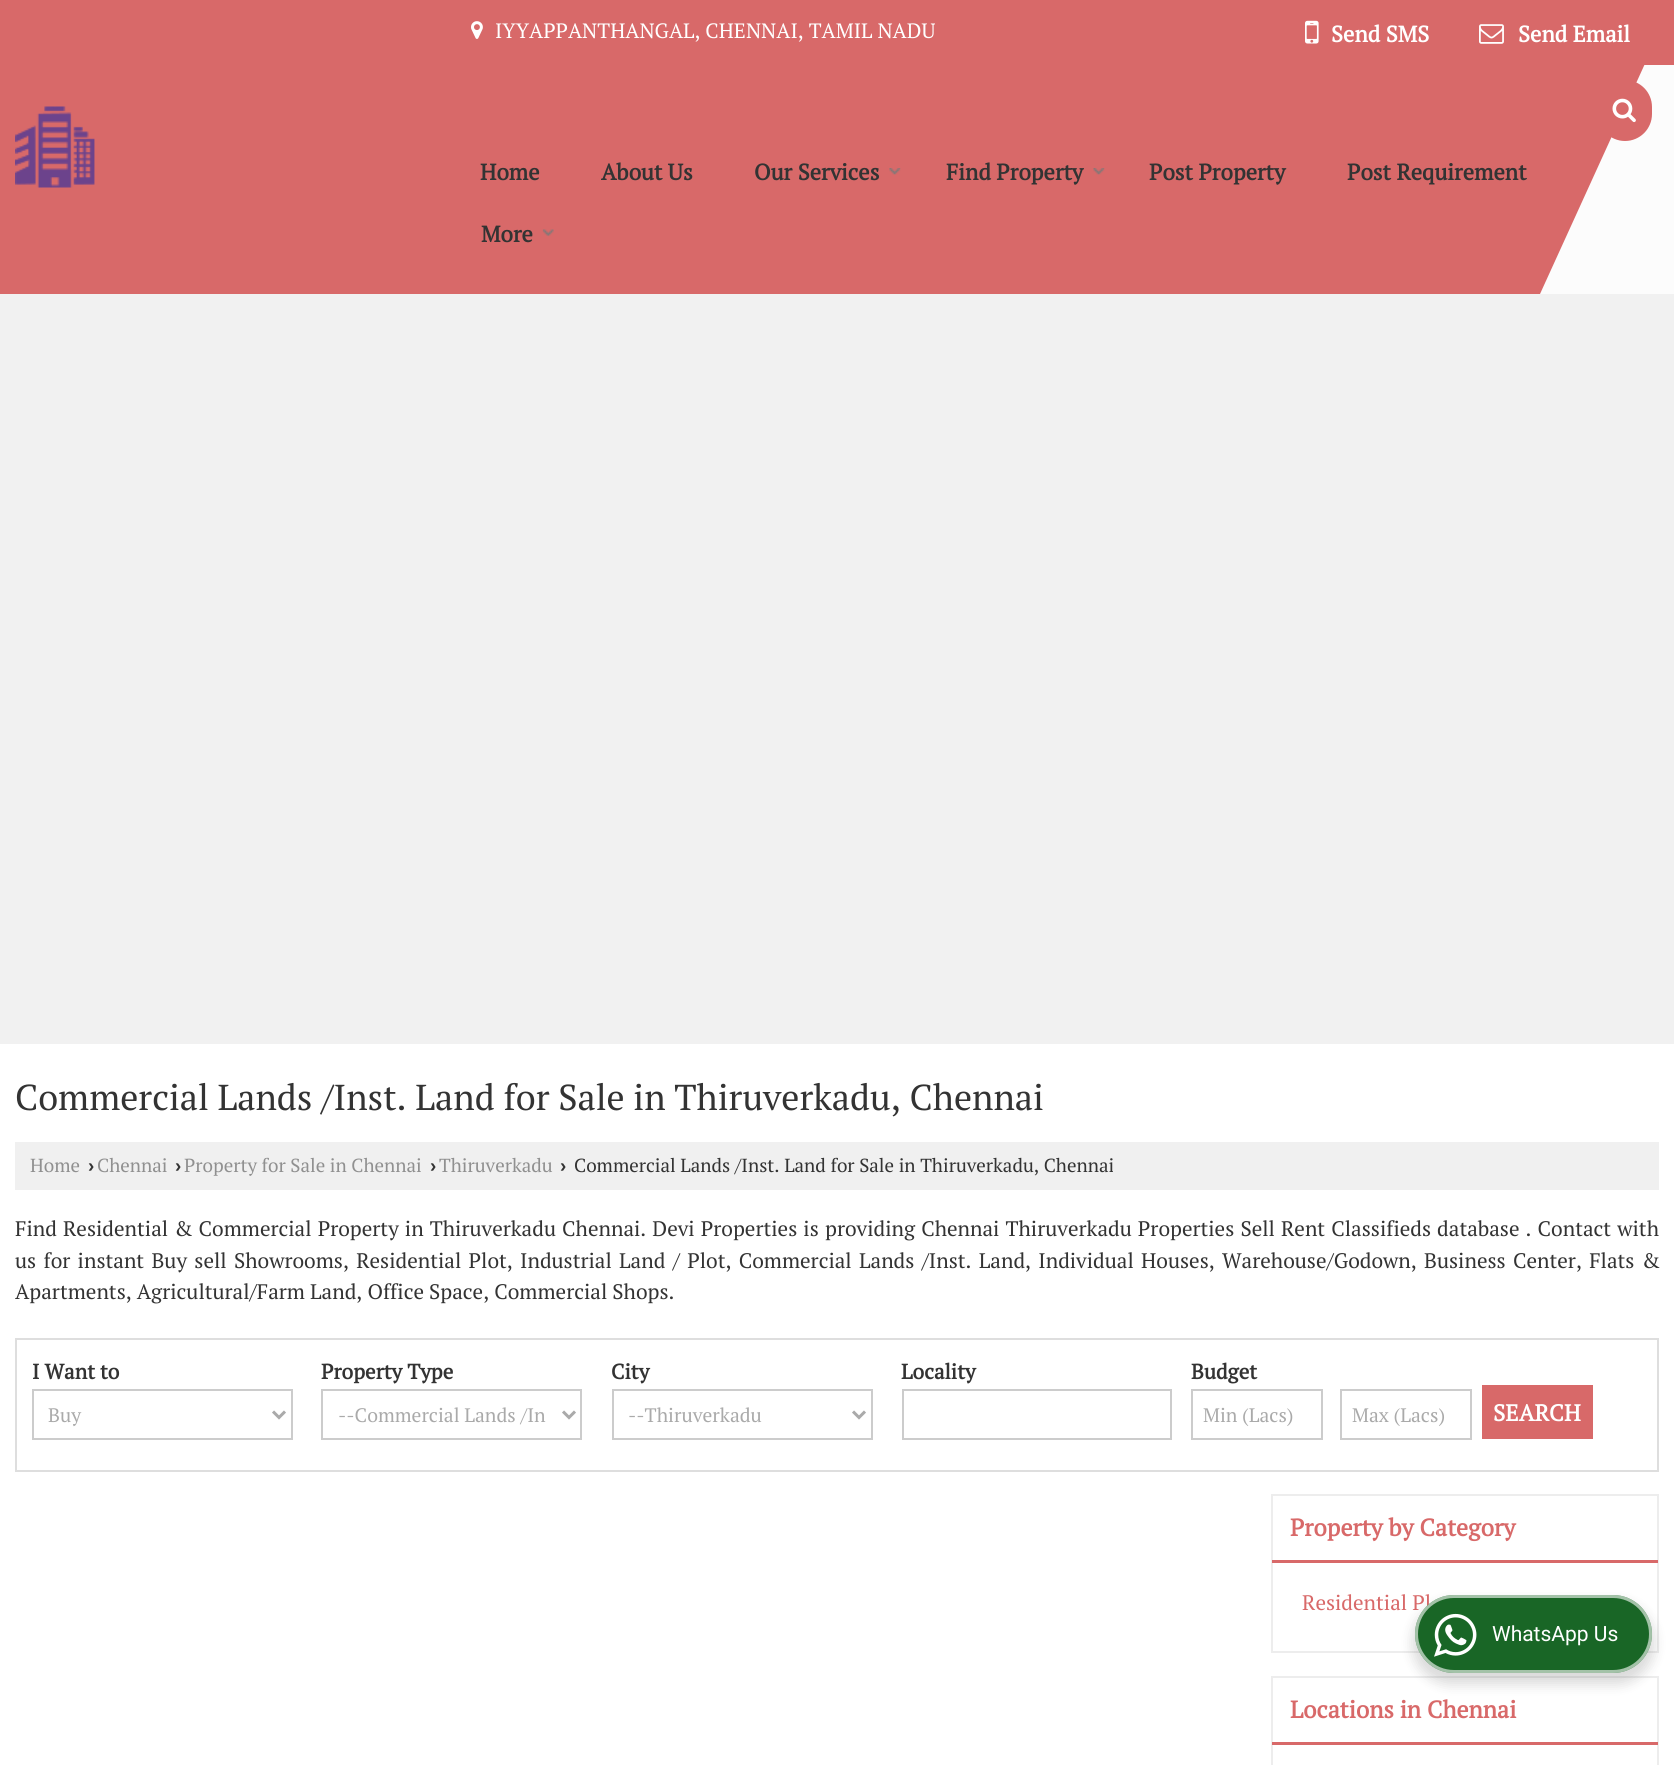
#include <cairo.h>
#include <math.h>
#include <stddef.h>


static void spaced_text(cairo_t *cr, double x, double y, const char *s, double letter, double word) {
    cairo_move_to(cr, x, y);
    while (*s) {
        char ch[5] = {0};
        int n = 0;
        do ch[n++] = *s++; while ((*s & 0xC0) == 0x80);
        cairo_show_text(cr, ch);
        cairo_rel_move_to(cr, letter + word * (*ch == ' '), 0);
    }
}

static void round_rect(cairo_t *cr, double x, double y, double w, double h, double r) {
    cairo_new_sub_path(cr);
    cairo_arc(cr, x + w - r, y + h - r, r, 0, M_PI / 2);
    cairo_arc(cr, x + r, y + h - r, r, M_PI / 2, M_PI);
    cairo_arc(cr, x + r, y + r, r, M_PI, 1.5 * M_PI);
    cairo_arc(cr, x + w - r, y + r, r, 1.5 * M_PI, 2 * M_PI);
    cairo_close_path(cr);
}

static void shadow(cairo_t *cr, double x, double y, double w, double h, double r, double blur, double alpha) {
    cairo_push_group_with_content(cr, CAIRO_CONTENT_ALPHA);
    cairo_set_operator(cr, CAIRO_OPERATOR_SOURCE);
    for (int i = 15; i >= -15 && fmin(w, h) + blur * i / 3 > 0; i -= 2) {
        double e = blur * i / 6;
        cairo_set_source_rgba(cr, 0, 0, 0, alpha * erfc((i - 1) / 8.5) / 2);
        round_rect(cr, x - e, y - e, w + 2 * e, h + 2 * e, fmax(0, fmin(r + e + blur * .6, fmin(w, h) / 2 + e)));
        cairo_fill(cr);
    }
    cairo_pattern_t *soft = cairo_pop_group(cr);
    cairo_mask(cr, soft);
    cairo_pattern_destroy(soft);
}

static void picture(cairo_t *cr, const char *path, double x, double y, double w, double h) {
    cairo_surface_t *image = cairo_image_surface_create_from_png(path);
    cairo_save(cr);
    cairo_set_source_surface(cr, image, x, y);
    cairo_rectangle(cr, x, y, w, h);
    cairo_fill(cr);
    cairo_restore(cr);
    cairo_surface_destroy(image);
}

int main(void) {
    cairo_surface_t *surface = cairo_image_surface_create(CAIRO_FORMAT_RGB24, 1674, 1765);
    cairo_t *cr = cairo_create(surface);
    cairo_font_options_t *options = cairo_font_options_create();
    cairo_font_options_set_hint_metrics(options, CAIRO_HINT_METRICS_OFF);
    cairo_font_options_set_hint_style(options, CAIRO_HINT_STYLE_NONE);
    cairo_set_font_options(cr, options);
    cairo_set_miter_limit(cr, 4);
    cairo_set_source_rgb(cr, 1, 1, 1);
    cairo_paint(cr);
    cairo_set_source_rgb(cr, 0.988, 0.988, 0.988);
    cairo_rectangle(cr, 1540, 65, 134, 229);
    cairo_fill(cr);
    cairo_set_source_rgb(cr, 0.847, 0.412, 0.412);
    cairo_new_path(cr);
    cairo_move_to(cr, 0, 0);
    cairo_line_to(cr, 0, 294);
    cairo_line_to(cr, 1540, 294);
    cairo_line_to(cr, 1674, 0);
    cairo_close_path(cr);
    cairo_fill(cr);
    picture(cr, "img1.png", 15, 106, 80, 82);
    cairo_rectangle(cr, 1644, 0, 30, 65);
    cairo_fill(cr);
    picture(cr, "img2.png", 471, 21, 12, 18);
    cairo_select_font_face(cr, "PT Serif", CAIRO_FONT_SLANT_NORMAL, CAIRO_FONT_WEIGHT_NORMAL);
    cairo_set_font_size(cr, 20.75);
    cairo_set_source_rgb(cr, 1, 1, 1);
    cairo_move_to(cr, 495, 38);
    cairo_show_text(cr, "IYYAPPANTHANGAL, CHENNAI, TAMIL NADU");
    picture(cr, "img3.png", 1305, 20, 14, 24);
    cairo_select_font_face(cr, "PT Serif", CAIRO_FONT_SLANT_NORMAL, CAIRO_FONT_WEIGHT_BOLD);
    cairo_set_font_size(cr, 22.5);
    cairo_move_to(cr, 1331, 42);
    cairo_show_text(cr, "Send SMS");
    picture(cr, "img4.png", 1479, 24, 25, 20);
    cairo_move_to(cr, 1518, 42);
    cairo_show_text(cr, "Send Email");
    cairo_set_source_rgb(cr, 0.847, 0.412, 0.412);
    round_rect(cr, 1598, 80, 54, 61, 27);
    cairo_fill(cr);
    picture(cr, "img5.png", 1612, 98, 24, 25);
    cairo_set_source_rgb(cr, 0.2, 0.2, 0.2);
    cairo_move_to(cr, 480, 180);
    cairo_show_text(cr, "Home");
    cairo_move_to(cr, 601, 180);
    cairo_show_text(cr, "About Us");
    cairo_move_to(cr, 754, 180);
    cairo_show_text(cr, "Our Services");
    picture(cr, "img6.png", 889, 168, 12, 7);
    cairo_move_to(cr, 946, 180);
    cairo_show_text(cr, "Find Property");
    picture(cr, "img7.png", 1093, 168, 12, 7);
    cairo_move_to(cr, 1149, 180);
    cairo_show_text(cr, "Post Property");
    cairo_move_to(cr, 1347, 180);
    cairo_show_text(cr, "Post Requirement");
    cairo_move_to(cr, 481, 242);
    cairo_show_text(cr, "More");
    picture(cr, "img8.png", 542, 229, 12, 8);
    cairo_set_source_rgb(cr, 0.945, 0.945, 0.945);
    cairo_rectangle(cr, 0, 294, 1674, 750);
    cairo_fill(cr);
    cairo_select_font_face(cr, "PT Serif", CAIRO_FONT_SLANT_NORMAL, CAIRO_FONT_WEIGHT_NORMAL);
    cairo_set_font_size(cr, 36);
    cairo_set_source_rgb(cr, 0.2, 0.2, 0.2);
    cairo_move_to(cr, 15, 1110);
    cairo_show_text(cr, "Commercial Lands /Inst. Land for Sale in Thiruverkadu, Chennai");
    cairo_set_source_rgb(cr, 0.941, 0.941, 0.941);
    cairo_rectangle(cr, 15, 1142, 1644, 48);
    cairo_fill(cr);
    cairo_set_font_size(cr, 18.9);
    cairo_set_source_rgb(cr, 0.565, 0.565, 0.565);
    cairo_move_to(cr, 30, 1172);
    cairo_show_text(cr, "Home");
    cairo_select_font_face(cr, "Liberation Sans", CAIRO_FONT_SLANT_NORMAL, CAIRO_FONT_WEIGHT_BOLD);
    cairo_set_source_rgb(cr, 0.2, 0.2, 0.2);
    cairo_move_to(cr, 88, 1172);
    cairo_show_text(cr, "›");
    cairo_select_font_face(cr, "PT Serif", CAIRO_FONT_SLANT_NORMAL, CAIRO_FONT_WEIGHT_NORMAL);
    cairo_set_source_rgb(cr, 0.565, 0.565, 0.565);
    cairo_move_to(cr, 97, 1172);
    cairo_show_text(cr, "Chennai");
    cairo_select_font_face(cr, "Liberation Sans", CAIRO_FONT_SLANT_NORMAL, CAIRO_FONT_WEIGHT_BOLD);
    cairo_set_source_rgb(cr, 0.2, 0.2, 0.2);
    cairo_move_to(cr, 175, 1172);
    cairo_show_text(cr, "›");
    cairo_select_font_face(cr, "PT Serif", CAIRO_FONT_SLANT_NORMAL, CAIRO_FONT_WEIGHT_NORMAL);
    cairo_set_source_rgb(cr, 0.565, 0.565, 0.565);
    cairo_move_to(cr, 184, 1172);
    cairo_show_text(cr, "Property for Sale in Chennai");
    cairo_select_font_face(cr, "Liberation Sans", CAIRO_FONT_SLANT_NORMAL, CAIRO_FONT_WEIGHT_BOLD);
    cairo_set_source_rgb(cr, 0.2, 0.2, 0.2);
    cairo_move_to(cr, 430, 1172);
    cairo_show_text(cr, "›");
    cairo_select_font_face(cr, "PT Serif", CAIRO_FONT_SLANT_NORMAL, CAIRO_FONT_WEIGHT_NORMAL);
    cairo_set_source_rgb(cr, 0.565, 0.565, 0.565);
    cairo_move_to(cr, 439, 1172);
    cairo_show_text(cr, "Thiruverkadu");
    cairo_select_font_face(cr, "Liberation Sans", CAIRO_FONT_SLANT_NORMAL, CAIRO_FONT_WEIGHT_BOLD);
    cairo_set_source_rgb(cr, 0.2, 0.2, 0.2);
    cairo_move_to(cr, 560, 1172);
    cairo_show_text(cr, "›");
    cairo_select_font_face(cr, "PT Serif", CAIRO_FONT_SLANT_NORMAL, CAIRO_FONT_WEIGHT_NORMAL);
    cairo_move_to(cr, 574, 1172);
    cairo_show_text(cr, "Commercial Lands /Inst. Land for Sale in Thiruverkadu, Chennai");
    cairo_set_font_size(cr, 21);
    spaced_text(cr, 15, 1236, "Find Residential & Commercial Property in Thiruverkadu Chennai. Devi Properties is", 0, 1);
    spaced_text(cr, 825, 1236, "providing Chennai Thiruverkadu Properties Sell Rent Classifieds database . Contact with", 0, 1);
    spaced_text(cr, 15, 1268, "us for instant Buy sell Showrooms, Residential Plot, Industrial Land / Plot, Commercial Lands /Inst. Land, Individual Houses, Warehouse/Godown, Business Center, Flats &", 0, 2.2);
    cairo_move_to(cr, 15, 1299);
    cairo_show_text(cr, "Apartments, Agricultural/Farm Land, Office Space, Commercial Shops.");
    cairo_rectangle(cr, 16, 1339, 1642, 132);
    cairo_set_source_rgb(cr, 0.871, 0.871, 0.871);
    cairo_stroke(cr);
    cairo_select_font_face(cr, "PT Serif", CAIRO_FONT_SLANT_NORMAL, CAIRO_FONT_WEIGHT_BOLD);
    cairo_set_source_rgb(cr, 0.2, 0.2, 0.2);
    cairo_move_to(cr, 32, 1379);
    cairo_show_text(cr, "I Want to");
    cairo_rectangle(cr, 33, 1390, 259, 49);
    cairo_set_source_rgb(cr, 0.8, 0.8, 0.8);
    cairo_stroke(cr);
    cairo_new_path(cr);
    cairo_move_to(cr, 273, 1411.5);
    cairo_line_to(cr, 279, 1417.5);
    cairo_line_to(cr, 285, 1411.5);
    cairo_set_source_rgb(cr, 0.667, 0.667, 0.667);
    cairo_set_line_width(cr, 3);
    cairo_stroke(cr);
    cairo_select_font_face(cr, "PT Serif", CAIRO_FONT_SLANT_NORMAL, CAIRO_FONT_WEIGHT_NORMAL);
    cairo_set_font_size(cr, 19.5);
    cairo_move_to(cr, 48, 1422);
    cairo_show_text(cr, "Buy");
    cairo_select_font_face(cr, "PT Serif", CAIRO_FONT_SLANT_NORMAL, CAIRO_FONT_WEIGHT_BOLD);
    cairo_set_font_size(cr, 21);
    cairo_set_source_rgb(cr, 0.2, 0.2, 0.2);
    cairo_move_to(cr, 321, 1379);
    cairo_show_text(cr, "Property Type");
    cairo_rectangle(cr, 322, 1390, 259, 49);
    cairo_set_source_rgb(cr, 0.8, 0.8, 0.8);
    cairo_set_line_width(cr, 2);
    cairo_stroke(cr);
    cairo_new_path(cr);
    cairo_move_to(cr, 563, 1411.5);
    cairo_line_to(cr, 569, 1417.5);
    cairo_line_to(cr, 575, 1411.5);
    cairo_set_source_rgb(cr, 0.667, 0.667, 0.667);
    cairo_set_line_width(cr, 3);
    cairo_stroke(cr);
    cairo_select_font_face(cr, "PT Serif", CAIRO_FONT_SLANT_NORMAL, CAIRO_FONT_WEIGHT_NORMAL);
    cairo_set_font_size(cr, 19.5);
    cairo_move_to(cr, 338, 1422);
    cairo_show_text(cr, "--Commercial Lands /In");
    cairo_select_font_face(cr, "PT Serif", CAIRO_FONT_SLANT_NORMAL, CAIRO_FONT_WEIGHT_BOLD);
    cairo_set_font_size(cr, 21);
    cairo_set_source_rgb(cr, 0.2, 0.2, 0.2);
    cairo_move_to(cr, 611, 1379);
    cairo_show_text(cr, "City");
    cairo_rectangle(cr, 613, 1390, 259, 49);
    cairo_set_source_rgb(cr, 0.8, 0.8, 0.8);
    cairo_set_line_width(cr, 2);
    cairo_stroke(cr);
    cairo_new_path(cr);
    cairo_move_to(cr, 853, 1411.5);
    cairo_line_to(cr, 859, 1417.5);
    cairo_line_to(cr, 865, 1411.5);
    cairo_set_source_rgb(cr, 0.667, 0.667, 0.667);
    cairo_set_line_width(cr, 3);
    cairo_stroke(cr);
    cairo_select_font_face(cr, "PT Serif", CAIRO_FONT_SLANT_NORMAL, CAIRO_FONT_WEIGHT_NORMAL);
    cairo_set_font_size(cr, 19.5);
    cairo_move_to(cr, 628, 1422);
    cairo_show_text(cr, "--Thiruverkadu");
    cairo_select_font_face(cr, "PT Serif", CAIRO_FONT_SLANT_NORMAL, CAIRO_FONT_WEIGHT_BOLD);
    cairo_set_font_size(cr, 21);
    cairo_set_source_rgb(cr, 0.2, 0.2, 0.2);
    cairo_move_to(cr, 901, 1379);
    cairo_show_text(cr, "Locality");
    cairo_rectangle(cr, 903, 1390, 268, 49);
    cairo_set_source_rgb(cr, 0.8, 0.8, 0.8);
    cairo_set_line_width(cr, 2);
    cairo_stroke(cr);
    cairo_set_source_rgb(cr, 0.2, 0.2, 0.2);
    cairo_move_to(cr, 1191, 1379);
    cairo_show_text(cr, "Budget");
    cairo_rectangle(cr, 1192, 1390, 130, 49);
    cairo_set_source_rgb(cr, 0.8, 0.8, 0.8);
    cairo_stroke(cr);
    cairo_select_font_face(cr, "PT Serif", CAIRO_FONT_SLANT_NORMAL, CAIRO_FONT_WEIGHT_NORMAL);
    cairo_set_font_size(cr, 19.5);
    cairo_set_source_rgb(cr, 0.667, 0.667, 0.667);
    cairo_move_to(cr, 1203, 1422);
    cairo_show_text(cr, "Min (Lacs)");
    cairo_rectangle(cr, 1341, 1390, 130, 49);
    cairo_set_source_rgb(cr, 0.8, 0.8, 0.8);
    cairo_stroke(cr);
    cairo_set_source_rgb(cr, 0.667, 0.667, 0.667);
    cairo_move_to(cr, 1352, 1422);
    cairo_show_text(cr, "Max (Lacs)");
    cairo_set_source_rgb(cr, 0.847, 0.412, 0.412);
    cairo_rectangle(cr, 1482, 1385, 111, 54);
    cairo_fill(cr);
    cairo_select_font_face(cr, "PT Serif", CAIRO_FONT_SLANT_NORMAL, CAIRO_FONT_WEIGHT_BOLD);
    cairo_set_font_size(cr, 23);
    cairo_set_source_rgb(cr, 1, 1, 1);
    cairo_move_to(cr, 1493, 1421);
    cairo_show_text(cr, "SEARCH");
    cairo_rectangle(cr, 1272, 1495, 386, 157);
    cairo_set_source_rgb(cr, 0.929, 0.929, 0.929);
    cairo_stroke(cr);
    cairo_set_source_rgb(cr, 0.847, 0.412, 0.412);
    cairo_rectangle(cr, 1272, 1560, 386, 3);
    cairo_fill(cr);
    cairo_set_font_size(cr, 24);
    cairo_move_to(cr, 1290, 1536);
    cairo_show_text(cr, "Property by Category");
    cairo_select_font_face(cr, "PT Serif", CAIRO_FONT_SLANT_NORMAL, CAIRO_FONT_WEIGHT_NORMAL);
    cairo_set_font_size(cr, 21);
    cairo_move_to(cr, 1302, 1610);
    cairo_show_text(cr, "Residential Pl");
    cairo_rectangle(cr, 1272, 1677, 386, 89);
    cairo_set_source_rgb(cr, 0.929, 0.929, 0.929);
    cairo_stroke(cr);
    cairo_set_source_rgb(cr, 0.847, 0.412, 0.412);
    cairo_rectangle(cr, 1272, 1742, 386, 3);
    cairo_fill(cr);
    cairo_select_font_face(cr, "PT Serif", CAIRO_FONT_SLANT_NORMAL, CAIRO_FONT_WEIGHT_BOLD);
    cairo_set_font_size(cr, 24);
    cairo_move_to(cr, 1290, 1718);
    cairo_show_text(cr, "Locations in Chennai");
    cairo_set_source_rgb(cr, 0, 0, 0);
    shadow(cr, 1412, 1601, 243, 84, 42, 6, 0.14);
    cairo_set_source_rgb(cr, 0.098, 0.4, 0.149);
    round_rect(cr, 1415, 1595, 237, 78, 39);
    cairo_fill(cr);
    round_rect(cr, 1416.5, 1596.5, 234, 75, 37.5);
    cairo_set_source_rgba(cr, 1, 1, 1, 0.6);
    cairo_set_line_width(cr, 3);
    cairo_stroke(cr);
    picture(cr, "img9.png", 1434, 1613, 43, 44);
    cairo_select_font_face(cr, "Roboto", CAIRO_FONT_SLANT_NORMAL, CAIRO_FONT_WEIGHT_NORMAL);
    cairo_set_font_size(cr, 21);
    cairo_set_source_rgb(cr, 1, 1, 1);
    cairo_move_to(cr, 1492, 1641);
    cairo_show_text(cr, "WhatsApp Us");
    cairo_surface_write_to_png(surface, "page.png");
    cairo_font_options_destroy(options);
    cairo_destroy(cr);
    cairo_surface_destroy(surface);
    return 0;
}
